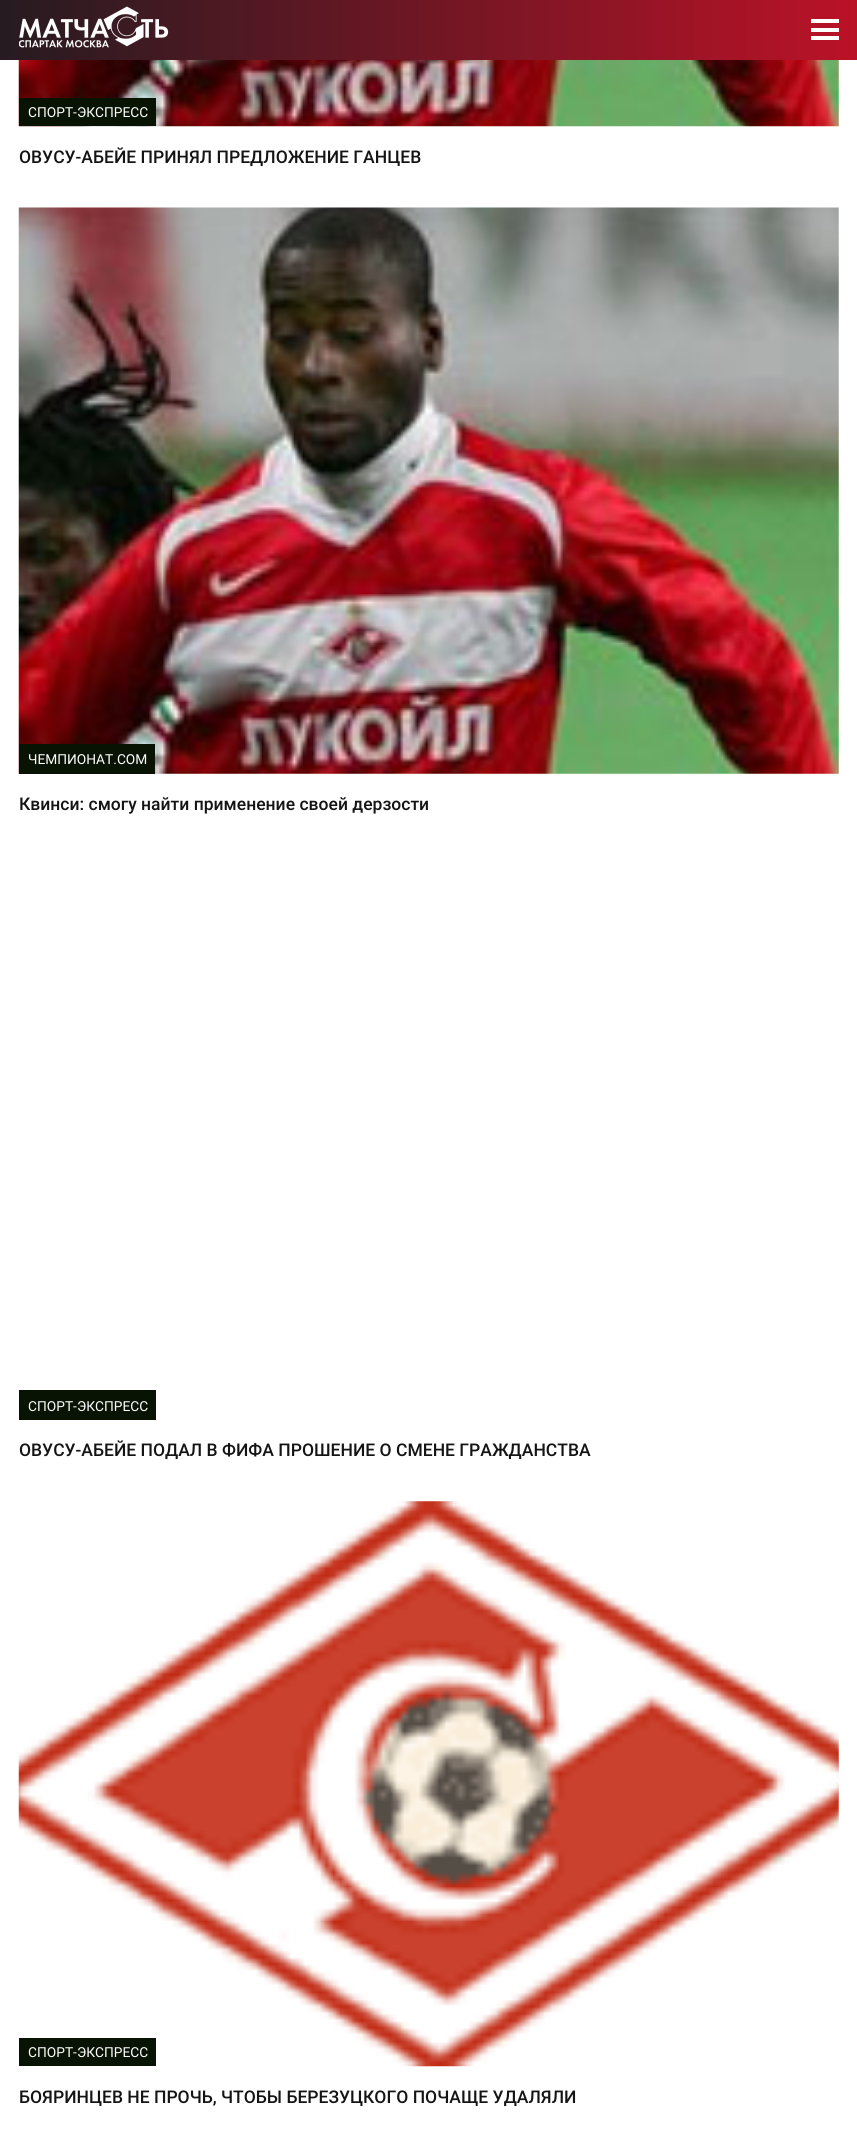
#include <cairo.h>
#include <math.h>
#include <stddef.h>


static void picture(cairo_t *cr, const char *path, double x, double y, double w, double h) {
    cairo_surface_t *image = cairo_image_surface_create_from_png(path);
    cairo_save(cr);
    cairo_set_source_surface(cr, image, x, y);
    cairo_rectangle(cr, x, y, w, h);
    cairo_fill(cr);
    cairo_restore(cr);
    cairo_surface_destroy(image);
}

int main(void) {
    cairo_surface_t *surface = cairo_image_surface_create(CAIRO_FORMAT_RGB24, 857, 2155);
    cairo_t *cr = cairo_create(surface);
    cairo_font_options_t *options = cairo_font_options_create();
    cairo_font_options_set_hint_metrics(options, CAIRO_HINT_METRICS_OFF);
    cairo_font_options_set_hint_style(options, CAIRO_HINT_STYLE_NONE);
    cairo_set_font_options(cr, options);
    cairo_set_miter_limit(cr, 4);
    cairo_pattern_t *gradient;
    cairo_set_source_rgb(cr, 1, 1, 1);
    cairo_paint(cr);
    gradient = cairo_pattern_create_linear(0, 30, 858, 30);
    cairo_pattern_add_color_stop_rgba(gradient, 0, 0.149, 0.106, 0.129, 1);
    cairo_pattern_add_color_stop_rgba(gradient, 1, 0.733, 0.071, 0.153, 1);
    cairo_set_source(cr, gradient);
    cairo_pattern_destroy(gradient);
    cairo_rectangle(cr, 0, 0, 857, 60);
    cairo_fill(cr);
    picture(cr, "img1.png", 19, 6, 150, 42);
    cairo_set_source_rgb(cr, 1, 1, 1);
    cairo_rectangle(cr, 811, 28, 28, 4);
    cairo_fill(cr);
    cairo_rectangle(cr, 811, 19, 28, 4);
    cairo_fill(cr);
    cairo_rectangle(cr, 811, 36, 28, 4);
    cairo_fill(cr);
    picture(cr, "img2.png", 18, 60, 821, 67);
    cairo_set_source_rgb(cr, 0.039, 0.075, 0.016);
    cairo_rectangle(cr, 19, 98, 137, 28);
    cairo_fill(cr);
    cairo_select_font_face(cr, "Roboto", CAIRO_FONT_SLANT_NORMAL, CAIRO_FONT_WEIGHT_NORMAL);
    cairo_set_font_size(cr, 13.75);
    cairo_set_source_rgb(cr, 1, 1, 1);
    cairo_move_to(cr, 28, 117);
    cairo_show_text(cr, "СПОРТ-ЭКСПРЕСС");
    cairo_select_font_face(cr, "Roboto Medium", CAIRO_FONT_SLANT_NORMAL, CAIRO_FONT_WEIGHT_NORMAL);
    cairo_set_font_size(cr, 17.5);
    cairo_set_source_rgb(cr, 0.082, 0.082, 0.082);
    cairo_move_to(cr, 19, 163);
    cairo_show_text(cr, "ОВУСУ-АБЕЙЕ ПРИНЯЛ ПРЕДЛОЖЕНИЕ ГАНЦЕВ");
    picture(cr, "img3.png", 18, 207, 821, 567);
    cairo_set_source_rgb(cr, 0.039, 0.075, 0.016);
    cairo_rectangle(cr, 19, 744, 136, 30);
    cairo_fill(cr);
    cairo_select_font_face(cr, "Roboto", CAIRO_FONT_SLANT_NORMAL, CAIRO_FONT_WEIGHT_NORMAL);
    cairo_set_font_size(cr, 13.75);
    cairo_set_source_rgb(cr, 1, 1, 1);
    cairo_move_to(cr, 28, 764);
    cairo_show_text(cr, "ЧЕМПИОНАТ.COM");
    cairo_select_font_face(cr, "Roboto Medium", CAIRO_FONT_SLANT_NORMAL, CAIRO_FONT_WEIGHT_NORMAL);
    cairo_set_font_size(cr, 17.5);
    cairo_set_source_rgb(cr, 0.082, 0.082, 0.082);
    cairo_move_to(cr, 19, 810);
    cairo_show_text(cr, "Квинси: смогу найти применение своей дерзости");
    cairo_set_source_rgb(cr, 0.039, 0.075, 0.016);
    cairo_rectangle(cr, 19, 1390, 137, 30);
    cairo_fill(cr);
    cairo_select_font_face(cr, "Roboto", CAIRO_FONT_SLANT_NORMAL, CAIRO_FONT_WEIGHT_NORMAL);
    cairo_set_font_size(cr, 13.75);
    cairo_set_source_rgb(cr, 1, 1, 1);
    cairo_move_to(cr, 28, 1411);
    cairo_show_text(cr, "СПОРТ-ЭКСПРЕСС");
    cairo_select_font_face(cr, "Roboto Medium", CAIRO_FONT_SLANT_NORMAL, CAIRO_FONT_WEIGHT_NORMAL);
    cairo_set_font_size(cr, 17.5);
    cairo_set_source_rgb(cr, 0.082, 0.082, 0.082);
    cairo_move_to(cr, 19, 1456);
    cairo_show_text(cr, "ОВУСУ-АБЕЙЕ ПОДАЛ В ФИФА ПРОШЕНИЕ О СМЕНЕ ГРАЖДАНСТВА");
    picture(cr, "img4.png", 18, 1501, 821, 566);
    cairo_set_source_rgb(cr, 0.039, 0.075, 0.016);
    cairo_rectangle(cr, 19, 2038, 137, 28);
    cairo_fill(cr);
    cairo_select_font_face(cr, "Roboto", CAIRO_FONT_SLANT_NORMAL, CAIRO_FONT_WEIGHT_NORMAL);
    cairo_set_font_size(cr, 13.75);
    cairo_set_source_rgb(cr, 1, 1, 1);
    cairo_move_to(cr, 28, 2057);
    cairo_show_text(cr, "СПОРТ-ЭКСПРЕСС");
    cairo_select_font_face(cr, "Roboto Medium", CAIRO_FONT_SLANT_NORMAL, CAIRO_FONT_WEIGHT_NORMAL);
    cairo_set_font_size(cr, 17.5);
    cairo_set_source_rgb(cr, 0.082, 0.082, 0.082);
    cairo_move_to(cr, 19, 2103);
    cairo_show_text(cr, "БОЯРИНЦЕВ НЕ ПРОЧЬ, ЧТОБЫ БЕРЕЗУЦКОГО ПОЧАЩЕ УДАЛЯЛИ");
    cairo_surface_write_to_png(surface, "page.png");
    cairo_font_options_destroy(options);
    cairo_destroy(cr);
    cairo_surface_destroy(surface);
    return 0;
}
